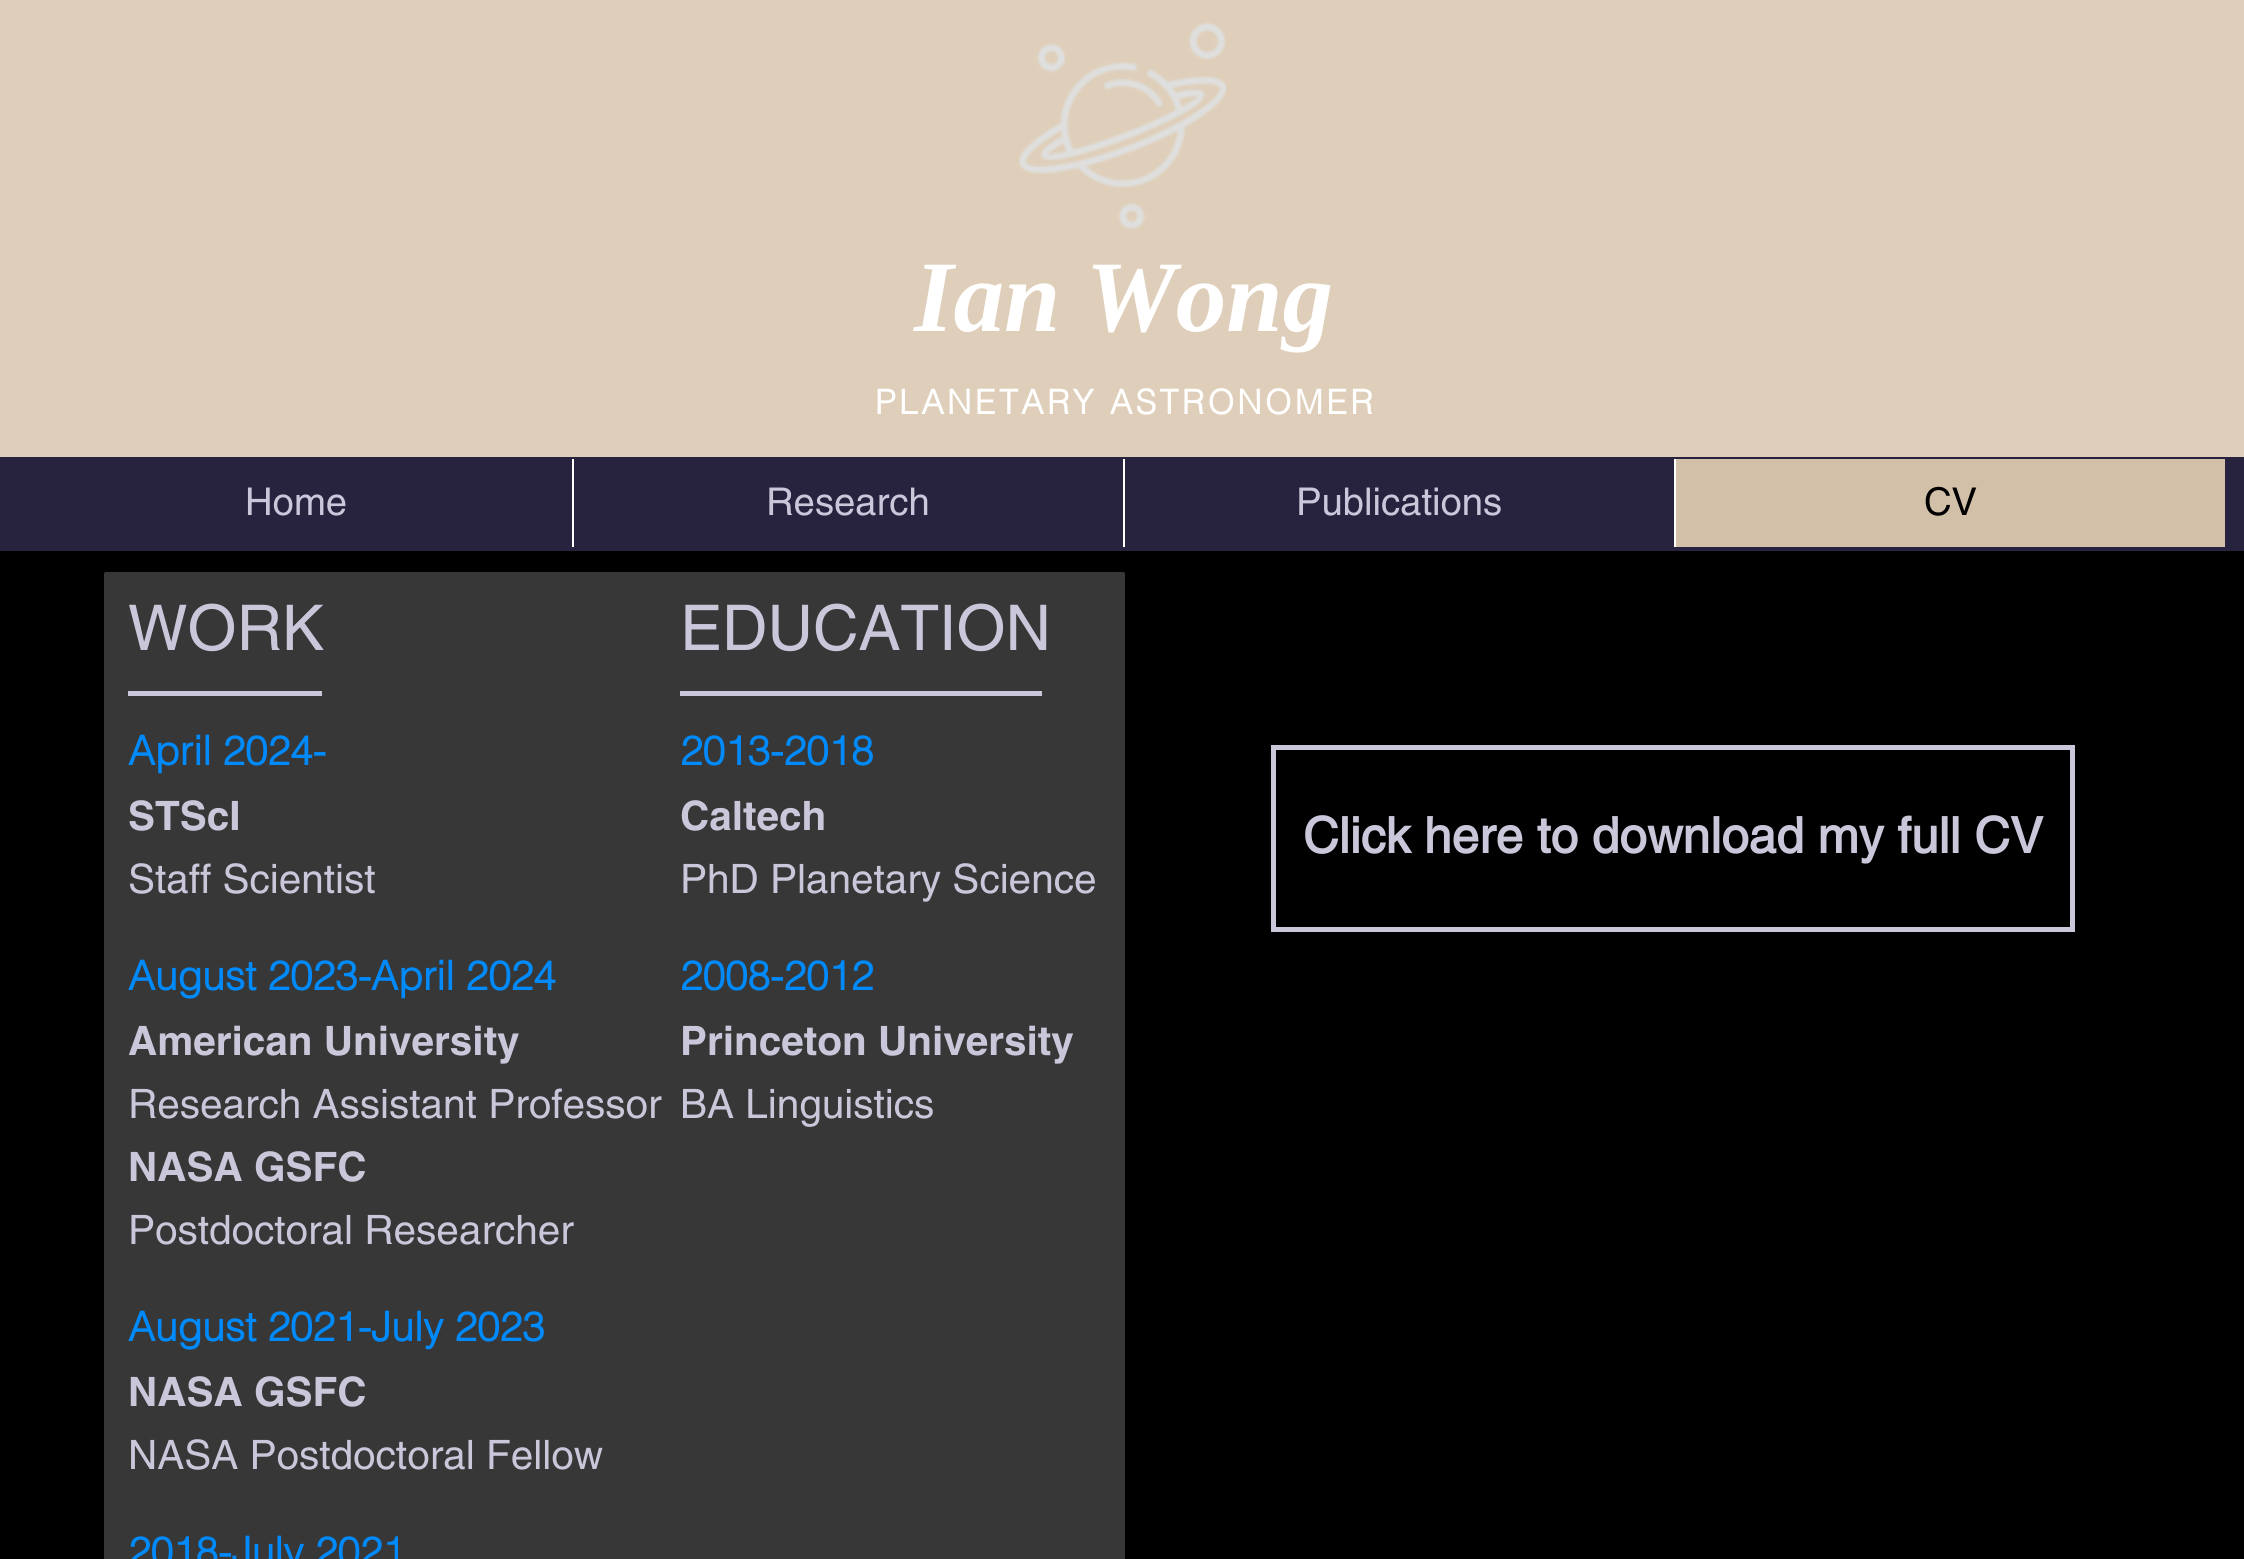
#include <cairo.h>
#include <math.h>
#include <stddef.h>


static void spaced_text(cairo_t *cr, double x, double y, const char *s, double letter, double word) {
    cairo_move_to(cr, x, y);
    while (*s) {
        char ch[5] = {0};
        int n = 0;
        do ch[n++] = *s++; while ((*s & 0xC0) == 0x80);
        cairo_show_text(cr, ch);
        cairo_rel_move_to(cr, letter + word * (*ch == ' '), 0);
    }
}

static void round_rect(cairo_t *cr, double x, double y, double w, double h, double r) {
    cairo_new_sub_path(cr);
    cairo_arc(cr, x + w - r, y + h - r, r, 0, M_PI / 2);
    cairo_arc(cr, x + r, y + h - r, r, M_PI / 2, M_PI);
    cairo_arc(cr, x + r, y + r, r, M_PI, 1.5 * M_PI);
    cairo_arc(cr, x + w - r, y + r, r, 1.5 * M_PI, 2 * M_PI);
    cairo_close_path(cr);
}

static void picture(cairo_t *cr, const char *path, double x, double y, double w, double h) {
    cairo_surface_t *image = cairo_image_surface_create_from_png(path);
    cairo_save(cr);
    cairo_set_source_surface(cr, image, x, y);
    cairo_rectangle(cr, x, y, w, h);
    cairo_fill(cr);
    cairo_restore(cr);
    cairo_surface_destroy(image);
}

int main(void) {
    cairo_surface_t *surface = cairo_image_surface_create(CAIRO_FORMAT_RGB24, 2244, 1559);
    cairo_t *cr = cairo_create(surface);
    cairo_font_options_t *options = cairo_font_options_create();
    cairo_font_options_set_hint_metrics(options, CAIRO_HINT_METRICS_OFF);
    cairo_font_options_set_hint_style(options, CAIRO_HINT_STYLE_NONE);
    cairo_set_font_options(cr, options);
    cairo_set_miter_limit(cr, 4);
    cairo_set_source_rgb(cr, 0, 0, 0);
    cairo_paint(cr);
    cairo_set_source_rgb(cr, 0.875, 0.812, 0.729);
    cairo_rectangle(cr, 0, 0, 2244, 457);
    cairo_fill(cr);
    picture(cr, "img1.png", 1019, 22, 207, 208);
    cairo_select_font_face(cr, "Liberation Serif", CAIRO_FONT_SLANT_ITALIC, CAIRO_FONT_WEIGHT_BOLD);
    cairo_set_font_size(cr, 101.25);
    cairo_set_source_rgb(cr, 1, 1, 1);
    cairo_move_to(cr, 914, 331);
    cairo_show_text(cr, "Ian Wong");
    cairo_select_font_face(cr, "helvetica", CAIRO_FONT_SLANT_NORMAL, CAIRO_FONT_WEIGHT_BOLD);
    cairo_set_font_size(cr, 33.75);
    spaced_text(cr, 875, 414, "PLANETARY ASTRONOMER", 3.4, 0);
    cairo_set_source_rgb(cr, 0.153, 0.133, 0.243);
    cairo_rectangle(cr, 0, 457, 2244, 94);
    cairo_fill(cr);
    cairo_select_font_face(cr, "helvetica", CAIRO_FONT_SLANT_NORMAL, CAIRO_FONT_WEIGHT_NORMAL);
    cairo_set_font_size(cr, 38.25);
    cairo_set_source_rgb(cr, 0.792, 0.78, 0.855);
    cairo_move_to(cr, 245, 515);
    cairo_show_text(cr, "Home");
    cairo_set_source_rgb(cr, 1, 1, 1);
    cairo_rectangle(cr, 572, 459, 2, 88);
    cairo_fill(cr);
    cairo_set_source_rgb(cr, 0.792, 0.78, 0.855);
    cairo_move_to(cr, 766, 515);
    cairo_show_text(cr, "Research");
    cairo_set_source_rgb(cr, 1, 1, 1);
    cairo_rectangle(cr, 1123, 459, 2, 88);
    cairo_fill(cr);
    cairo_set_source_rgb(cr, 0.792, 0.78, 0.855);
    cairo_move_to(cr, 1296, 515);
    cairo_show_text(cr, "Publications");
    cairo_set_source_rgb(cr, 0.824, 0.753, 0.659);
    cairo_rectangle(cr, 1676, 459, 549, 88);
    cairo_fill(cr);
    cairo_set_source_rgb(cr, 1, 1, 1);
    cairo_rectangle(cr, 1674, 459, 2, 88);
    cairo_fill(cr);
    cairo_set_source_rgb(cr, 0, 0, 0);
    cairo_move_to(cr, 1924, 515);
    cairo_show_text(cr, "CV");
    cairo_set_source_rgb(cr, 0.216, 0.216, 0.216);
    round_rect(cr, 104, 572, 1021, 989, 2);
    cairo_fill(cr);
    cairo_set_font_size(cr, 63);
    cairo_set_source_rgb(cr, 0.792, 0.78, 0.855);
    cairo_move_to(cr, 680, 650);
    cairo_show_text(cr, "EDUCATION");
    cairo_rectangle(cr, 128, 691, 194, 5);
    cairo_fill(cr);
    cairo_rectangle(cr, 680, 691, 362, 5);
    cairo_fill(cr);
    cairo_select_font_face(cr, "helvetica", CAIRO_FONT_SLANT_NORMAL, CAIRO_FONT_WEIGHT_BOLD);
    cairo_set_font_size(cr, 40.5);
    cairo_set_source_rgb(cr, 0, 0.541, 0.988);
    cairo_move_to(cr, 128, 765);
    cairo_show_text(cr, "April 2024-");
    cairo_select_font_face(cr, "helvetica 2", CAIRO_FONT_SLANT_NORMAL, CAIRO_FONT_WEIGHT_BOLD);
    cairo_set_source_rgb(cr, 0.792, 0.78, 0.855);
    cairo_move_to(cr, 128, 830);
    cairo_show_text(cr, "STScI");
    cairo_select_font_face(cr, "helvetica", CAIRO_FONT_SLANT_NORMAL, CAIRO_FONT_WEIGHT_NORMAL);
    cairo_move_to(cr, 128, 893);
    cairo_show_text(cr, "Staff Scientist");
    cairo_select_font_face(cr, "helvetica", CAIRO_FONT_SLANT_NORMAL, CAIRO_FONT_WEIGHT_BOLD);
    cairo_set_source_rgb(cr, 0, 0.541, 0.988);
    cairo_move_to(cr, 680, 765);
    cairo_show_text(cr, "2013-2018");
    cairo_select_font_face(cr, "helvetica 2", CAIRO_FONT_SLANT_NORMAL, CAIRO_FONT_WEIGHT_BOLD);
    cairo_set_source_rgb(cr, 0.792, 0.78, 0.855);
    cairo_move_to(cr, 680, 830);
    cairo_show_text(cr, "Caltech");
    cairo_select_font_face(cr, "helvetica", CAIRO_FONT_SLANT_NORMAL, CAIRO_FONT_WEIGHT_NORMAL);
    cairo_move_to(cr, 680, 893);
    cairo_show_text(cr, "PhD Planetary Science");
    cairo_select_font_face(cr, "helvetica", CAIRO_FONT_SLANT_NORMAL, CAIRO_FONT_WEIGHT_BOLD);
    cairo_set_source_rgb(cr, 0, 0.541, 0.988);
    cairo_move_to(cr, 128, 990);
    cairo_show_text(cr, "August 2023-April 2024");
    cairo_select_font_face(cr, "helvetica 2", CAIRO_FONT_SLANT_NORMAL, CAIRO_FONT_WEIGHT_BOLD);
    cairo_set_source_rgb(cr, 0.792, 0.78, 0.855);
    cairo_move_to(cr, 128, 1055);
    cairo_show_text(cr, "American University");
    cairo_select_font_face(cr, "helvetica", CAIRO_FONT_SLANT_NORMAL, CAIRO_FONT_WEIGHT_NORMAL);
    cairo_move_to(cr, 128, 1118);
    cairo_show_text(cr, "Research Assistant Professor");
    cairo_select_font_face(cr, "helvetica 2", CAIRO_FONT_SLANT_NORMAL, CAIRO_FONT_WEIGHT_BOLD);
    cairo_move_to(cr, 128, 1181);
    cairo_show_text(cr, "NASA GSFC");
    cairo_select_font_face(cr, "helvetica", CAIRO_FONT_SLANT_NORMAL, CAIRO_FONT_WEIGHT_NORMAL);
    cairo_move_to(cr, 128, 1244);
    cairo_show_text(cr, "Postdoctoral Researcher");
    cairo_select_font_face(cr, "helvetica", CAIRO_FONT_SLANT_NORMAL, CAIRO_FONT_WEIGHT_BOLD);
    cairo_set_source_rgb(cr, 0, 0.541, 0.988);
    cairo_move_to(cr, 680, 990);
    cairo_show_text(cr, "2008-2012");
    cairo_select_font_face(cr, "helvetica 2", CAIRO_FONT_SLANT_NORMAL, CAIRO_FONT_WEIGHT_BOLD);
    cairo_set_source_rgb(cr, 0.792, 0.78, 0.855);
    cairo_move_to(cr, 680, 1055);
    cairo_show_text(cr, "Princeton University");
    cairo_select_font_face(cr, "helvetica", CAIRO_FONT_SLANT_NORMAL, CAIRO_FONT_WEIGHT_NORMAL);
    cairo_move_to(cr, 680, 1118);
    cairo_show_text(cr, "BA Linguistics");
    cairo_select_font_face(cr, "helvetica", CAIRO_FONT_SLANT_NORMAL, CAIRO_FONT_WEIGHT_BOLD);
    cairo_set_source_rgb(cr, 0, 0.541, 0.988);
    cairo_move_to(cr, 128, 1341);
    cairo_show_text(cr, "August 2021-July 2023");
    cairo_select_font_face(cr, "helvetica 2", CAIRO_FONT_SLANT_NORMAL, CAIRO_FONT_WEIGHT_BOLD);
    cairo_set_source_rgb(cr, 0.792, 0.78, 0.855);
    cairo_move_to(cr, 128, 1406);
    cairo_show_text(cr, "NASA GSFC");
    cairo_select_font_face(cr, "helvetica", CAIRO_FONT_SLANT_NORMAL, CAIRO_FONT_WEIGHT_NORMAL);
    cairo_move_to(cr, 128, 1469);
    cairo_show_text(cr, "NASA Postdoctoral Fellow");
    cairo_select_font_face(cr, "helvetica", CAIRO_FONT_SLANT_NORMAL, CAIRO_FONT_WEIGHT_BOLD);
    cairo_set_source_rgb(cr, 0, 0.541, 0.988);
    cairo_move_to(cr, 128, 1566);
    cairo_show_text(cr, "2018-July 2021");
    cairo_select_font_face(cr, "helvetica", CAIRO_FONT_SLANT_NORMAL, CAIRO_FONT_WEIGHT_NORMAL);
    cairo_set_font_size(cr, 63);
    cairo_set_source_rgb(cr, 0.792, 0.78, 0.855);
    cairo_move_to(cr, 128, 650);
    cairo_show_text(cr, "WORK");
    cairo_rectangle(cr, 1273.5, 747.5, 799, 182);
    cairo_set_line_width(cr, 5);
    cairo_stroke(cr);
    cairo_select_font_face(cr, "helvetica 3", CAIRO_FONT_SLANT_NORMAL, CAIRO_FONT_WEIGHT_BOLD);
    cairo_set_font_size(cr, 49.5);
    cairo_move_to(cr, 1303, 853);
    cairo_show_text(cr, "Click here to download my full CV");
    cairo_surface_write_to_png(surface, "page.png");
    cairo_font_options_destroy(options);
    cairo_destroy(cr);
    cairo_surface_destroy(surface);
    return 0;
}
